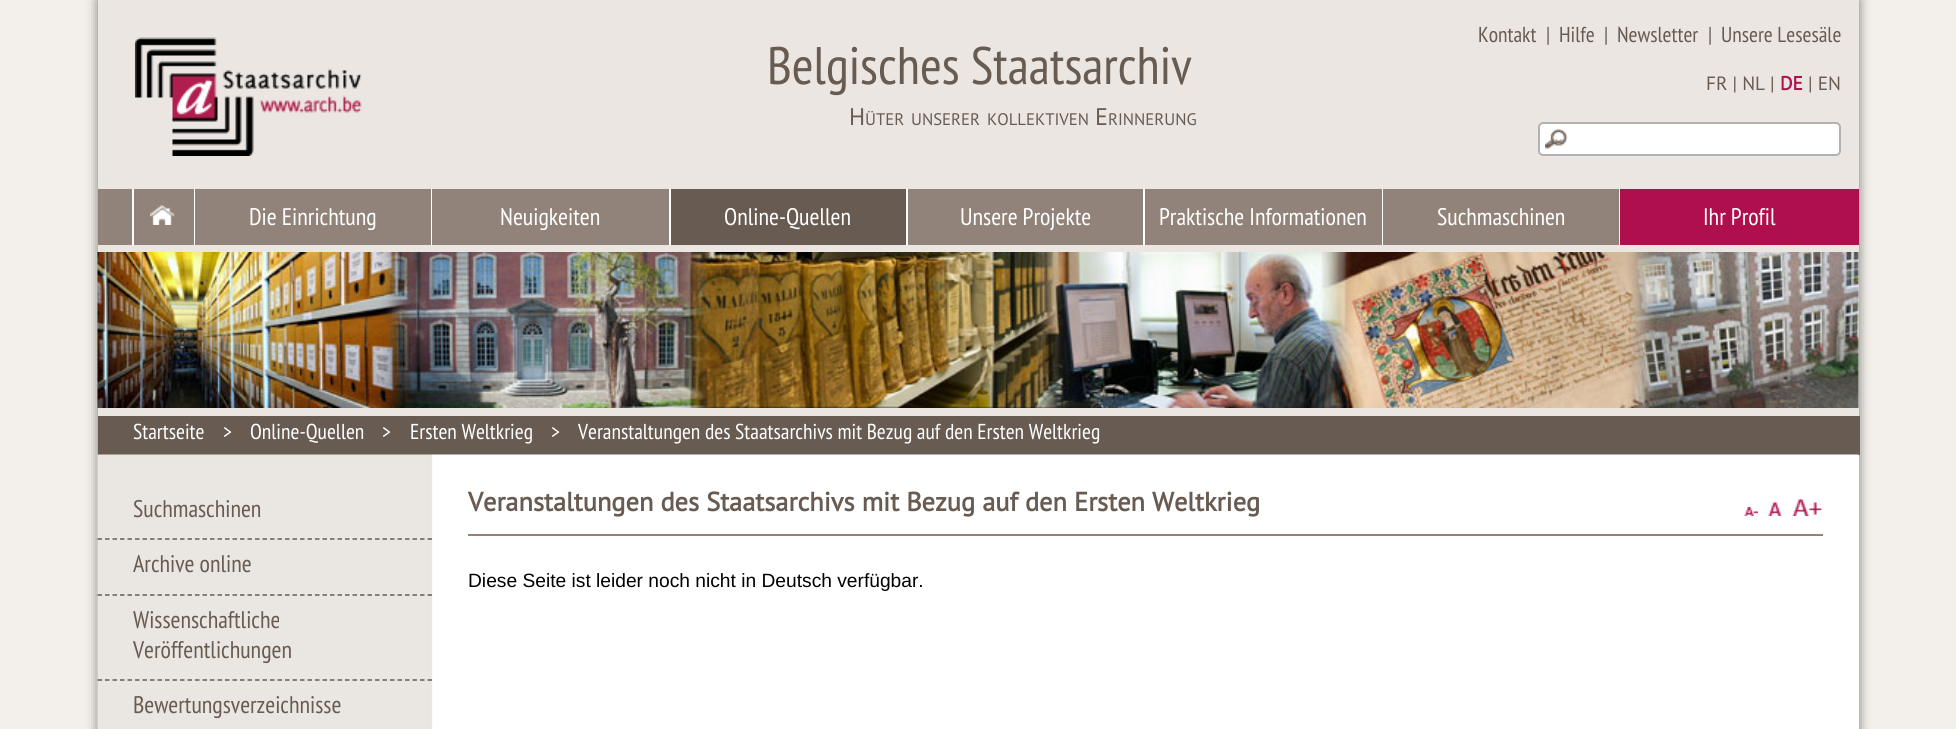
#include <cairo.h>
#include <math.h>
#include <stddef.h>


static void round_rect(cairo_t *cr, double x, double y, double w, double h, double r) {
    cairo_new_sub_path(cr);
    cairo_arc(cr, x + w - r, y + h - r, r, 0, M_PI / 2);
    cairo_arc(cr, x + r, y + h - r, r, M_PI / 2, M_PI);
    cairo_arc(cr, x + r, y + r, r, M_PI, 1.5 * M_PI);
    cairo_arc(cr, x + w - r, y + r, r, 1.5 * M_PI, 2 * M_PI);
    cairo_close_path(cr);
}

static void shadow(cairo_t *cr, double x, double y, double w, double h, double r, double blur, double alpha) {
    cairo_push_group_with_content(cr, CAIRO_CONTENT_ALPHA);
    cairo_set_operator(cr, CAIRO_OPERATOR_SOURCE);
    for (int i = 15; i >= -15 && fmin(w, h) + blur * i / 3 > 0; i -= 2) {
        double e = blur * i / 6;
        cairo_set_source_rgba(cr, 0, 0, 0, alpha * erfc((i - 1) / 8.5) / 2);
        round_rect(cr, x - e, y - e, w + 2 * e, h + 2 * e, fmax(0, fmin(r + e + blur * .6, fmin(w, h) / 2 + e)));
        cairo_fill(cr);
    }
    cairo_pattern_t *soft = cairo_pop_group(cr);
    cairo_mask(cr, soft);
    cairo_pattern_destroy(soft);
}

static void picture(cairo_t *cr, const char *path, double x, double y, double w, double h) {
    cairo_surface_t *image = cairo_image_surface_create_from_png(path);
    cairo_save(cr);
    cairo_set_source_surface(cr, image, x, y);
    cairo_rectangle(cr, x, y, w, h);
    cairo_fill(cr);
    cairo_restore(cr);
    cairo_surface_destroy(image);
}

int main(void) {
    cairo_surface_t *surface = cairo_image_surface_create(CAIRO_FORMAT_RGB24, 1956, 729);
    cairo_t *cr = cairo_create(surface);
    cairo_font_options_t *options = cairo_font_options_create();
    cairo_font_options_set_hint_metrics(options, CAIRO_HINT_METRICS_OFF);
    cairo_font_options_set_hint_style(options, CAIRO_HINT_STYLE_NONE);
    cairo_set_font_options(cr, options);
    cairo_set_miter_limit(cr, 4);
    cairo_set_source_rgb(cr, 0.953, 0.941, 0.925);
    cairo_paint(cr);
    cairo_set_source_rgb(cr, 0, 0, 0);
    shadow(cr, 98, 0, 1761, 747, 0, 6, 0.5);
    cairo_set_source_rgb(cr, 1, 1, 1);
    cairo_rectangle(cr, 1858, 455, 1, 274);
    cairo_fill(cr);
    cairo_set_source_rgb(cr, 0.918, 0.902, 0.882);
    cairo_rectangle(cr, 98, 0, 1761, 416);
    cairo_fill(cr);
    picture(cr, "img1.png", 135, 37, 227, 119);
    cairo_select_font_face(cr, "PT Sans Narrow", CAIRO_FONT_SLANT_NORMAL, CAIRO_FONT_WEIGHT_NORMAL);
    cairo_set_font_size(cr, 52.75);
    cairo_set_source_rgb(cr, 0.408, 0.357, 0.322);
    cairo_move_to(cr, 767, 84);
    cairo_show_text(cr, "Belgisches Staatsarchiv");
    cairo_select_font_face(cr, "PT Sans", CAIRO_FONT_SLANT_NORMAL, CAIRO_FONT_WEIGHT_NORMAL);
    cairo_set_font_size(cr, 24);
    cairo_move_to(cr, 849, 125);
    cairo_show_text(cr, "H");
    cairo_set_font_size(cr, 16.75);
    cairo_move_to(cr, 865, 125);
    cairo_show_text(cr, "ÜTER");
    cairo_move_to(cr, 911, 125);
    cairo_show_text(cr, "UNSERER");
    cairo_move_to(cr, 987, 125);
    cairo_show_text(cr, "KOLLEKTIVEN");
    cairo_set_font_size(cr, 24);
    cairo_move_to(cr, 1095, 125);
    cairo_show_text(cr, "E");
    cairo_set_font_size(cr, 16.75);
    cairo_move_to(cr, 1108, 125);
    cairo_show_text(cr, "RINNERUNG");
    cairo_select_font_face(cr, "PT Sans Narrow", CAIRO_FONT_SLANT_NORMAL, CAIRO_FONT_WEIGHT_NORMAL);
    cairo_set_font_size(cr, 21.6);
    cairo_move_to(cr, 1478, 42);
    cairo_show_text(cr, "Kontakt");
    cairo_move_to(cr, 1546, 42);
    cairo_show_text(cr, "|");
    cairo_move_to(cr, 1559, 42);
    cairo_show_text(cr, "Hilfe");
    cairo_move_to(cr, 1604, 42);
    cairo_show_text(cr, "|");
    cairo_move_to(cr, 1617, 42);
    cairo_show_text(cr, "Newsletter");
    cairo_move_to(cr, 1708, 42);
    cairo_show_text(cr, "|");
    cairo_move_to(cr, 1721, 42);
    cairo_show_text(cr, "Unsere Lesesäle");
    cairo_select_font_face(cr, "PT Sans", CAIRO_FONT_SLANT_NORMAL, CAIRO_FONT_WEIGHT_NORMAL);
    cairo_set_font_size(cr, 19.2);
    cairo_move_to(cr, 1706, 90);
    cairo_show_text(cr, "FR | NL |");
    cairo_select_font_face(cr, "PT Sans", CAIRO_FONT_SLANT_NORMAL, CAIRO_FONT_WEIGHT_BOLD);
    cairo_set_source_rgb(cr, 0.686, 0.063, 0.302);
    cairo_move_to(cr, 1780, 90);
    cairo_show_text(cr, "DE");
    cairo_select_font_face(cr, "PT Sans", CAIRO_FONT_SLANT_NORMAL, CAIRO_FONT_WEIGHT_NORMAL);
    cairo_set_source_rgb(cr, 0.408, 0.357, 0.322);
    cairo_move_to(cr, 1808, 90);
    cairo_show_text(cr, "| EN");
    cairo_set_source_rgb(cr, 1, 1, 1);
    round_rect(cr, 1538, 122, 303, 34, 5);
    cairo_fill(cr);
    picture(cr, "img2.png", 1545, 129, 23, 20);
    round_rect(cr, 1539, 123, 301, 32, 4);
    cairo_set_source_rgb(cr, 0.698, 0.698, 0.698);
    cairo_stroke(cr);
    cairo_set_source_rgb(cr, 0.569, 0.514, 0.475);
    cairo_rectangle(cr, 98, 189, 1284, 56);
    cairo_fill(cr);
    cairo_set_source_rgb(cr, 1, 1, 1);
    cairo_rectangle(cr, 194, 189, 1, 56);
    cairo_fill(cr);
    cairo_rectangle(cr, 132, 189, 2, 56);
    cairo_fill(cr);
    picture(cr, "img3.png", 150, 205, 25, 20);
    cairo_rectangle(cr, 431, 189, 1, 56);
    cairo_fill(cr);
    cairo_select_font_face(cr, "PT Sans Narrow", CAIRO_FONT_SLANT_NORMAL, CAIRO_FONT_WEIGHT_NORMAL);
    cairo_set_font_size(cr, 24);
    cairo_move_to(cr, 249, 225);
    cairo_show_text(cr, "Die Einrichtung");
    cairo_rectangle(cr, 669, 189, 2, 56);
    cairo_fill(cr);
    cairo_move_to(cr, 500, 225);
    cairo_show_text(cr, "Neuigkeiten");
    cairo_set_source_rgb(cr, 0.408, 0.357, 0.322);
    cairo_rectangle(cr, 671, 189, 235, 56);
    cairo_fill(cr);
    cairo_set_source_rgb(cr, 1, 1, 1);
    cairo_rectangle(cr, 906, 189, 2, 56);
    cairo_fill(cr);
    cairo_move_to(cr, 724, 225);
    cairo_show_text(cr, "Online-Quellen");
    cairo_rectangle(cr, 1143, 189, 2, 56);
    cairo_fill(cr);
    cairo_move_to(cr, 960, 225);
    cairo_show_text(cr, "Unsere Projekte");
    cairo_rectangle(cr, 1382, 189, 1, 56);
    cairo_fill(cr);
    cairo_move_to(cr, 1159, 225);
    cairo_show_text(cr, "Praktische Informationen");
    cairo_set_source_rgb(cr, 0.569, 0.514, 0.475);
    cairo_rectangle(cr, 1383, 189, 236, 56);
    cairo_fill(cr);
    cairo_set_source_rgb(cr, 1, 1, 1);
    cairo_rectangle(cr, 1619, 189, 1, 56);
    cairo_fill(cr);
    cairo_move_to(cr, 1437, 225);
    cairo_show_text(cr, "Suchmaschinen");
    cairo_set_source_rgb(cr, 0.686, 0.063, 0.302);
    cairo_rectangle(cr, 1620, 189, 239, 56);
    cairo_fill(cr);
    cairo_set_source_rgb(cr, 1, 1, 1);
    cairo_move_to(cr, 1703, 225);
    cairo_show_text(cr, "Ihr Profil");
    picture(cr, "img4.png", 97, 252, 1762, 156);
    cairo_set_source_rgb(cr, 0.408, 0.357, 0.322);
    cairo_rectangle(cr, 98, 416, 1762, 39);
    cairo_fill(cr);
    cairo_set_font_size(cr, 21.6);
    cairo_set_source_rgb(cr, 1, 1, 1);
    cairo_move_to(cr, 133, 439);
    cairo_show_text(cr, "Startseite");
    cairo_move_to(cr, 223, 439);
    cairo_show_text(cr, ">");
    cairo_move_to(cr, 250, 439);
    cairo_show_text(cr, "Online-Quellen");
    cairo_move_to(cr, 382, 439);
    cairo_show_text(cr, ">");
    cairo_move_to(cr, 410, 439);
    cairo_show_text(cr, "Ersten Weltkrieg");
    cairo_move_to(cr, 551, 439);
    cairo_show_text(cr, ">");
    cairo_move_to(cr, 578, 439);
    cairo_show_text(cr, "Veranstaltungen des Staatsarchivs mit Bezug auf den Ersten Weltkrieg");
    picture(cr, "img5.png", 97, 454, 1762, 275);
    cairo_new_path(cr);
    cairo_move_to(cr, 97.5, 539);
    cairo_line_to(cr, 432, 539);
    cairo_set_source_rgb(cr, 0.408, 0.357, 0.322);
    cairo_set_line_width(cr, 1.5);
    cairo_set_dash(cr, (double[]){4.5, 3}, 2, 0);
    cairo_stroke(cr);
    cairo_set_font_size(cr, 24);
    cairo_move_to(cr, 133, 517);
    cairo_show_text(cr, "Suchmaschinen");
    cairo_new_path(cr);
    cairo_move_to(cr, 97.5, 595);
    cairo_line_to(cr, 432, 595);
    cairo_stroke(cr);
    cairo_move_to(cr, 133, 572);
    cairo_show_text(cr, "Archive online");
    cairo_new_path(cr);
    cairo_move_to(cr, 97.5, 680);
    cairo_line_to(cr, 432, 680);
    cairo_stroke(cr);
    cairo_move_to(cr, 133, 628);
    cairo_show_text(cr, "Wissenschaftliche");
    cairo_move_to(cr, 133, 658);
    cairo_show_text(cr, "Veröffentlichungen");
    cairo_move_to(cr, 133, 713);
    cairo_show_text(cr, "Bewertungsverzeichnisse");
    cairo_set_source_rgb(cr, 0.569, 0.514, 0.475);
    cairo_rectangle(cr, 468, 534, 1355, 2);
    cairo_fill(cr);
    cairo_select_font_face(cr, "PT Sans", CAIRO_FONT_SLANT_NORMAL, CAIRO_FONT_WEIGHT_BOLD);
    cairo_set_font_size(cr, 26.4);
    cairo_set_source_rgb(cr, 0.408, 0.357, 0.322);
    cairo_move_to(cr, 468, 511);
    cairo_show_text(cr, "Veranstaltungen des Staatsarchivs mit Bezug auf den Ersten Weltkrieg");
    picture(cr, "img6.png", 1744, 507, 14, 9);
    picture(cr, "img7.png", 1768, 502, 14, 14);
    picture(cr, "img8.png", 1792, 499, 31, 17);
    cairo_select_font_face(cr, "Liberation Sans", CAIRO_FONT_SLANT_NORMAL, CAIRO_FONT_WEIGHT_NORMAL);
    cairo_set_font_size(cr, 19.2);
    cairo_set_source_rgb(cr, 0, 0, 0);
    cairo_move_to(cr, 468, 587);
    cairo_show_text(cr, "Diese Seite ist leider noch nicht in Deutsch verfügbar.");
    cairo_surface_write_to_png(surface, "page.png");
    cairo_font_options_destroy(options);
    cairo_destroy(cr);
    cairo_surface_destroy(surface);
    return 0;
}
